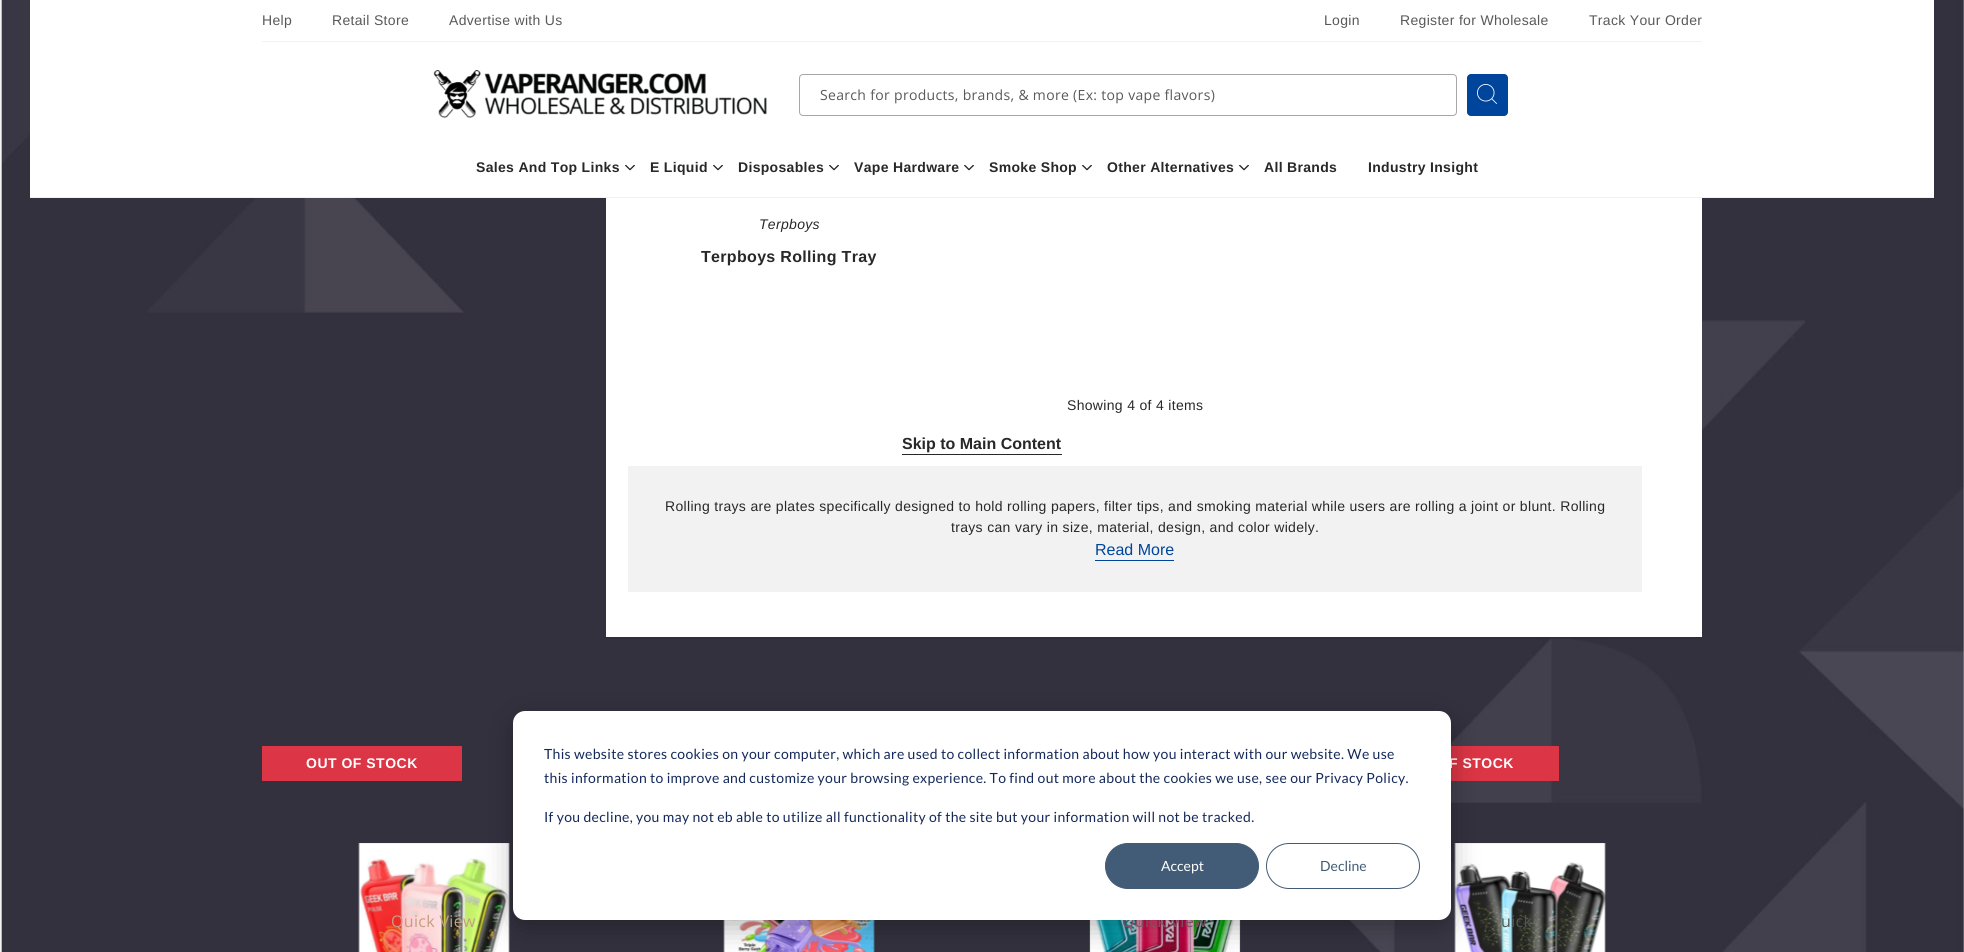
#include <cairo.h>
#include <math.h>
#include <stddef.h>


static void spaced_text(cairo_t *cr, double x, double y, const char *s, double letter, double word) {
    cairo_move_to(cr, x, y);
    while (*s) {
        char ch[5] = {0};
        int n = 0;
        do ch[n++] = *s++; while ((*s & 0xC0) == 0x80);
        cairo_show_text(cr, ch);
        cairo_rel_move_to(cr, letter + word * (*ch == ' '), 0);
    }
}

static void round_rect(cairo_t *cr, double x, double y, double w, double h, double r) {
    cairo_new_sub_path(cr);
    cairo_arc(cr, x + w - r, y + h - r, r, 0, M_PI / 2);
    cairo_arc(cr, x + r, y + h - r, r, M_PI / 2, M_PI);
    cairo_arc(cr, x + r, y + r, r, M_PI, 1.5 * M_PI);
    cairo_arc(cr, x + w - r, y + r, r, 1.5 * M_PI, 2 * M_PI);
    cairo_close_path(cr);
}

static void shadow(cairo_t *cr, double x, double y, double w, double h, double r, double blur, double alpha) {
    cairo_push_group_with_content(cr, CAIRO_CONTENT_ALPHA);
    cairo_set_operator(cr, CAIRO_OPERATOR_SOURCE);
    for (int i = 15; i >= -15 && fmin(w, h) + blur * i / 3 > 0; i -= 2) {
        double e = blur * i / 6;
        cairo_set_source_rgba(cr, 0, 0, 0, alpha * erfc((i - 1) / 8.5) / 2);
        round_rect(cr, x - e, y - e, w + 2 * e, h + 2 * e, fmax(0, fmin(r + e + blur * .6, fmin(w, h) / 2 + e)));
        cairo_fill(cr);
    }
    cairo_pattern_t *soft = cairo_pop_group(cr);
    cairo_mask(cr, soft);
    cairo_pattern_destroy(soft);
}

static void picture(cairo_t *cr, const char *path, double x, double y, double w, double h) {
    cairo_surface_t *image = cairo_image_surface_create_from_png(path);
    cairo_save(cr);
    cairo_set_source_surface(cr, image, x, y);
    cairo_rectangle(cr, x, y, w, h);
    cairo_fill(cr);
    cairo_restore(cr);
    cairo_surface_destroy(image);
}

int main(void) {
    cairo_surface_t *surface = cairo_image_surface_create(CAIRO_FORMAT_RGB24, 1964, 952);
    cairo_t *cr = cairo_create(surface);
    cairo_font_options_t *options = cairo_font_options_create();
    cairo_font_options_set_hint_metrics(options, CAIRO_HINT_METRICS_OFF);
    cairo_font_options_set_hint_style(options, CAIRO_HINT_STYLE_NONE);
    cairo_set_font_options(cr, options);
    cairo_set_miter_limit(cr, 4);
    cairo_set_source_rgb(cr, 1, 1, 1);
    cairo_paint(cr);
    picture(cr, "img1.png", 0, 0, 1964, 952);
    cairo_set_source_rgb(cr, 0.949, 0.949, 0.949);
    cairo_rectangle(cr, 30, 197, 1904, 1);
    cairo_fill(cr);
    cairo_set_source_rgb(cr, 1, 1, 1);
    cairo_rectangle(cr, 30, 0, 1904, 197);
    cairo_fill(cr);
    cairo_set_source_rgb(cr, 0.949, 0.949, 0.949);
    cairo_rectangle(cr, 262, 41, 1440, 1);
    cairo_fill(cr);
    cairo_select_font_face(cr, "Liberation Sans", CAIRO_FONT_SLANT_NORMAL, CAIRO_FONT_WEIGHT_NORMAL);
    cairo_set_font_size(cr, 14);
    cairo_set_source_rgb(cr, 0.349, 0.349, 0.349);
    spaced_text(cr, 262, 25, "Help", 0.32, 0);
    spaced_text(cr, 332, 25, "Retail Store", 0.32, 0);
    spaced_text(cr, 449, 25, "Advertise with Us", 0.32, 0);
    spaced_text(cr, 1324, 25, "Login", 0.32, 0);
    spaced_text(cr, 1400, 25, "Register for Wholesale", 0.32, 0);
    spaced_text(cr, 1589, 25, "Track Your Order", 0.32, 0);
    picture(cr, "img2.png", 433, 70, 334, 49);
    round_rect(cr, 799.5, 74.5, 657, 41, 3.5);
    cairo_set_source_rgb(cr, 0.655, 0.655, 0.655);
    cairo_set_line_width(cr, 1);
    cairo_stroke(cr);
    cairo_select_font_face(cr, "Open Sans", CAIRO_FONT_SLANT_NORMAL, CAIRO_FONT_WEIGHT_NORMAL);
    cairo_set_source_rgb(cr, 0.349, 0.349, 0.349);
    spaced_text(cr, 820, 100, "Search for products, brands, & more (Ex: top vape flavors)", 0.32, 0);
    cairo_set_source_rgb(cr, 0, 0.271, 0.612);
    round_rect(cr, 1467, 74, 41, 42, 4);
    cairo_fill(cr);
    picture(cr, "img3.png", 1477, 84, 20, 20);
    cairo_select_font_face(cr, "Liberation Sans", CAIRO_FONT_SLANT_NORMAL, CAIRO_FONT_WEIGHT_BOLD);
    cairo_set_source_rgb(cr, 0.157, 0.157, 0.157);
    spaced_text(cr, 476, 172, "Sales And Top Links", 0.32, 0);
    picture(cr, "img4.png", 625, 165, 10, 6);
    spaced_text(cr, 650, 172, "E Liquid", 0.32, 0);
    picture(cr, "img4.png", 713, 165, 10, 6);
    spaced_text(cr, 738, 172, "Disposables", 0.32, 0);
    picture(cr, "img4.png", 829, 165, 10, 6);
    spaced_text(cr, 854, 172, "Vape Hardware", 0.32, 0);
    picture(cr, "img4.png", 964, 165, 10, 6);
    spaced_text(cr, 989, 172, "Smoke Shop", 0.32, 0);
    picture(cr, "img4.png", 1082, 165, 10, 6);
    spaced_text(cr, 1107, 172, "Other Alternatives", 0.32, 0);
    picture(cr, "img4.png", 1239, 165, 10, 6);
    spaced_text(cr, 1264, 172, "All Brands", 0.32, 0);
    spaced_text(cr, 1368, 172, "Industry Insight", 0.32, 0);
    cairo_set_source_rgba(cr, 0, 0, 0, 0.07);
    cairo_rectangle(cr, 606, 637, 1096, 2);
    cairo_fill(cr);
    cairo_set_source_rgb(cr, 1, 1, 1);
    cairo_rectangle(cr, 606, 198, 1096, 439);
    cairo_fill(cr);
    cairo_select_font_face(cr, "Liberation Sans", CAIRO_FONT_SLANT_ITALIC, CAIRO_FONT_WEIGHT_NORMAL);
    cairo_set_source_rgb(cr, 0.157, 0.157, 0.157);
    spaced_text(cr, 759, 229, "Terpboys", 0.32, 0);
    cairo_select_font_face(cr, "Liberation Sans", CAIRO_FONT_SLANT_NORMAL, CAIRO_FONT_WEIGHT_BOLD);
    cairo_set_font_size(cr, 16);
    spaced_text(cr, 701, 262, "Terpboys Rolling Tray", 0.32, 0);
    cairo_select_font_face(cr, "Liberation Sans", CAIRO_FONT_SLANT_NORMAL, CAIRO_FONT_WEIGHT_NORMAL);
    cairo_set_font_size(cr, 14);
    spaced_text(cr, 1067, 410, "Showing 4 of 4 items", 0.32, 0);
    cairo_set_source_rgb(cr, 0.949, 0.949, 0.949);
    cairo_rectangle(cr, 628, 466, 1014, 126);
    cairo_fill(cr);
    cairo_set_source_rgb(cr, 0.157, 0.157, 0.157);
    spaced_text(cr, 665, 511, "Rolling trays are plates specifically designed to hold rolling papers, filter tips, and smoking material while users are rolling a joint or blunt. Rolling", 0.32, 0);
    spaced_text(cr, 951, 532, "trays can vary in size, material, design, and color widely.", 0.32, 0);
    cairo_set_font_size(cr, 16);
    cairo_set_source_rgb(cr, 0, 0.271, 0.612);
    cairo_move_to(cr, 1095, 555);
    cairo_show_text(cr, "Read More");
    cairo_rectangle(cr, 1095, 560, 79, 1);
    cairo_fill(cr);
    cairo_set_source_rgb(cr, 0.863, 0.208, 0.271);
    cairo_rectangle(cr, 262, 746, 200, 35);
    cairo_fill(cr);
    cairo_select_font_face(cr, "Liberation Sans", CAIRO_FONT_SLANT_NORMAL, CAIRO_FONT_WEIGHT_BOLD);
    cairo_set_font_size(cr, 14);
    cairo_set_source_rgb(cr, 1, 1, 1);
    spaced_text(cr, 306, 768, "OUT OF STOCK", 0.5, 0);
    picture(cr, "img5.png", 358, 843, 152, 109);
    cairo_select_font_face(cr, "Open Sans", CAIRO_FONT_SLANT_NORMAL, CAIRO_FONT_WEIGHT_NORMAL);
    cairo_set_font_size(cr, 16);
    cairo_set_source_rgb(cr, 0.769, 0.62, 0.514);
    spaced_text(cr, 391, 927, "Quick View", 0.32, 0);
    picture(cr, "img6.png", 723, 920, 152, 32);
    picture(cr, "img7.png", 1089, 920, 152, 32);
    cairo_set_source_rgb(cr, 0.608, 0.373, 0.455);
    spaced_text(cr, 1122, 927, "Quick View", 0.32, 0);
    cairo_set_source_rgb(cr, 0.863, 0.208, 0.271);
    cairo_rectangle(cr, 1451, 746, 108, 35);
    cairo_fill(cr);
    cairo_select_font_face(cr, "Liberation Sans", CAIRO_FONT_SLANT_NORMAL, CAIRO_FONT_WEIGHT_BOLD);
    cairo_set_font_size(cr, 14);
    cairo_set_source_rgb(cr, 1, 1, 1);
    spaced_text(cr, 1449, 768, "F STOCK", 0.5, 0);
    picture(cr, "img8.png", 1454, 843, 152, 109);
    cairo_select_font_face(cr, "Open Sans", CAIRO_FONT_SLANT_NORMAL, CAIRO_FONT_WEIGHT_NORMAL);
    cairo_set_font_size(cr, 16);
    cairo_set_source_rgb(cr, 0.314, 0.341, 0.325);
    spaced_text(cr, 1501, 927, "uick", 0.32, 0);
    cairo_select_font_face(cr, "Liberation Sans", CAIRO_FONT_SLANT_NORMAL, CAIRO_FONT_WEIGHT_BOLD);
    cairo_set_source_rgb(cr, 0.157, 0.157, 0.157);
    cairo_move_to(cr, 902, 449);
    cairo_show_text(cr, "Skip to Main Content");
    cairo_rectangle(cr, 902, 454, 160, 1);
    cairo_fill(cr);
    cairo_set_source_rgb(cr, 0, 0, 0);
    shadow(cr, 513, 719, 938, 209, 12, 14, 0.28);
    cairo_set_source_rgb(cr, 1, 1, 1);
    round_rect(cr, 513, 711, 938, 209, 12);
    cairo_fill(cr);
    cairo_select_font_face(cr, "Lato", CAIRO_FONT_SLANT_NORMAL, CAIRO_FONT_WEIGHT_NORMAL);
    cairo_set_font_size(cr, 14);
    cairo_set_source_rgb(cr, 0.082, 0.161, 0.353);
    spaced_text(cr, 544, 759, "This website stores cookies on your computer, which are used to collect information about how you interact with our website. We use", 0.32, 0);
    spaced_text(cr, 544, 783, "this information to improve and customize your browsing experience. To find out more about the cookies we use, see our Privacy Policy.", 0.32, 0);
    spaced_text(cr, 544, 822, "If you decline, you may not eb able to utilize all functionality of the site but your information will not be tracked.", 0.32, 0);
    cairo_set_source_rgb(cr, 0.259, 0.357, 0.463);
    round_rect(cr, 1105.5, 843.5, 153, 45, 22.5);
    cairo_fill_preserve(cr);
    cairo_stroke(cr);
    cairo_set_source_rgb(cr, 1, 1, 1);
    cairo_move_to(cr, 1161, 871);
    cairo_show_text(cr, "Accept");
    round_rect(cr, 1266.5, 843.5, 153, 45, 22.5);
    cairo_set_source_rgb(cr, 0.259, 0.357, 0.463);
    cairo_stroke(cr);
    cairo_move_to(cr, 1320, 871);
    cairo_show_text(cr, "Decline");
    cairo_surface_write_to_png(surface, "page.png");
    cairo_font_options_destroy(options);
    cairo_destroy(cr);
    cairo_surface_destroy(surface);
    return 0;
}
